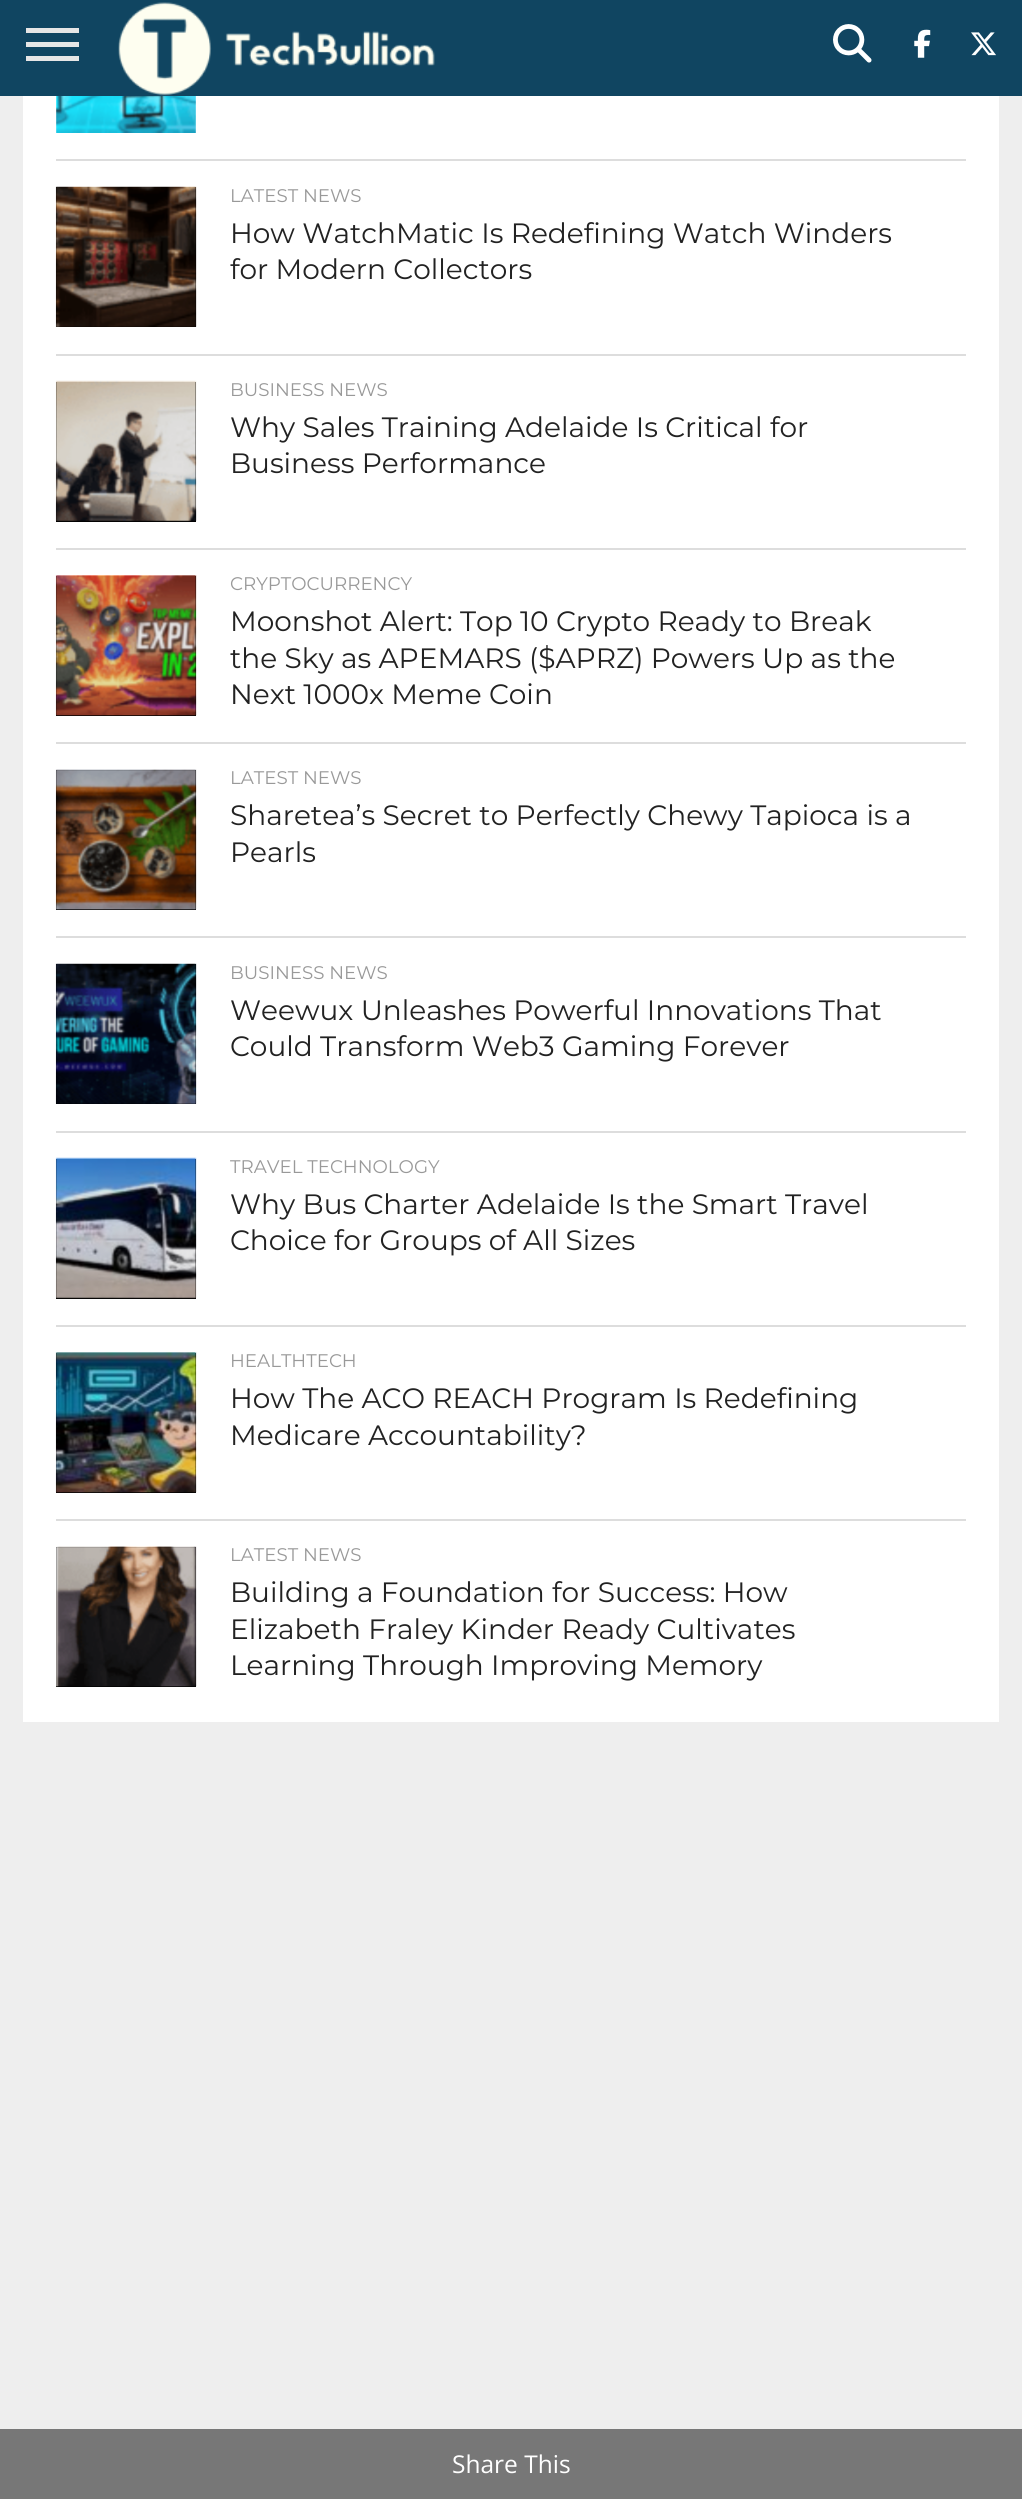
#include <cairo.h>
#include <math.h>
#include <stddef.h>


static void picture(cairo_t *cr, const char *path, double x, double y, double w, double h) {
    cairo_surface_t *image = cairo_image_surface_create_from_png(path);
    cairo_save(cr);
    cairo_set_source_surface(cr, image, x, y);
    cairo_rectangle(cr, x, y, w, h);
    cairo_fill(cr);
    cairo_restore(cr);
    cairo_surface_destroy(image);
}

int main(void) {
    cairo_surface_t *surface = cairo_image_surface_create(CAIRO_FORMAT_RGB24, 1022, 2499);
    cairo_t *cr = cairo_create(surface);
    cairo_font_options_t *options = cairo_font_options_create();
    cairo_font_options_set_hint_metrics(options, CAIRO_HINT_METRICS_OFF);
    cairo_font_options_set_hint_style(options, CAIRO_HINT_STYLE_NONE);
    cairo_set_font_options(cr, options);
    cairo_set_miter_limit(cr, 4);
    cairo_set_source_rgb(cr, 0.933, 0.933, 0.933);
    cairo_paint(cr);
    cairo_set_source_rgb(cr, 0.063, 0.271, 0.38);
    cairo_rectangle(cr, 0, 0, 1022, 96);
    cairo_fill(cr);
    cairo_set_source_rgb(cr, 0.902, 0.902, 0.902);
    cairo_rectangle(cr, 26, 28, 53, 5);
    cairo_fill(cr);
    cairo_rectangle(cr, 26, 42, 53, 5);
    cairo_fill(cr);
    cairo_rectangle(cr, 26, 56, 53, 5);
    cairo_fill(cr);
    picture(cr, "img1.png", 118, 2, 317, 94);
    picture(cr, "img2.png", 833, 24, 39, 39);
    picture(cr, "img3.png", 914, 29, 17, 29);
    picture(cr, "img4.png", 971, 32, 25, 24);
    cairo_set_source_rgb(cr, 1, 1, 1);
    cairo_rectangle(cr, 23, 96, 976, 1626);
    cairo_fill(cr);
    picture(cr, "img5.png", 56, 96, 140, 37);
    cairo_set_source_rgb(cr, 0.867, 0.867, 0.867);
    cairo_rectangle(cr, 56, 159, 910, 2);
    cairo_fill(cr);
    cairo_set_source_rgb(cr, 0, 0, 0);
    cairo_rectangle(cr, 56, 187, 140, 140);
    cairo_fill(cr);
    picture(cr, "img6.png", 55, 186, 142, 141);
    cairo_select_font_face(cr, "Montserrat", CAIRO_FONT_SLANT_NORMAL, CAIRO_FONT_WEIGHT_NORMAL);
    cairo_set_font_size(cr, 18.25);
    cairo_set_source_rgb(cr, 0.6, 0.6, 0.6);
    cairo_move_to(cr, 230, 202);
    cairo_show_text(cr, "LATEST NEWS");
    cairo_set_font_size(cr, 28);
    cairo_set_source_rgb(cr, 0.133, 0.133, 0.133);
    cairo_move_to(cr, 230, 243);
    cairo_show_text(cr, "How WatchMatic Is Redefining Watch Winders");
    cairo_move_to(cr, 230, 279);
    cairo_show_text(cr, "for Modern Collectors");
    cairo_set_source_rgb(cr, 0.867, 0.867, 0.867);
    cairo_rectangle(cr, 56, 354, 910, 2);
    cairo_fill(cr);
    cairo_set_source_rgb(cr, 0, 0, 0);
    cairo_rectangle(cr, 56, 382, 140, 140);
    cairo_fill(cr);
    picture(cr, "img7.png", 55, 380, 142, 142);
    cairo_set_font_size(cr, 18.25);
    cairo_set_source_rgb(cr, 0.6, 0.6, 0.6);
    cairo_move_to(cr, 230, 396);
    cairo_show_text(cr, "BUSINESS NEWS");
    cairo_set_font_size(cr, 28);
    cairo_set_source_rgb(cr, 0.133, 0.133, 0.133);
    cairo_move_to(cr, 230, 437);
    cairo_show_text(cr, "Why Sales Training Adelaide Is Critical for");
    cairo_move_to(cr, 230, 473);
    cairo_show_text(cr, "Business Performance");
    cairo_set_source_rgb(cr, 0.867, 0.867, 0.867);
    cairo_rectangle(cr, 56, 548, 910, 2);
    cairo_fill(cr);
    cairo_set_source_rgb(cr, 0, 0, 0);
    cairo_rectangle(cr, 56, 576, 140, 140);
    cairo_fill(cr);
    picture(cr, "img8.png", 55, 575, 142, 141);
    cairo_set_font_size(cr, 18.25);
    cairo_set_source_rgb(cr, 0.6, 0.6, 0.6);
    cairo_move_to(cr, 230, 590);
    cairo_show_text(cr, "CRYPTOCURRENCY");
    cairo_set_font_size(cr, 28);
    cairo_set_source_rgb(cr, 0.133, 0.133, 0.133);
    cairo_move_to(cr, 230, 631);
    cairo_show_text(cr, "Moonshot Alert: Top 10 Crypto Ready to Break");
    cairo_move_to(cr, 230, 668);
    cairo_show_text(cr, "the Sky as APEMARS ($APRZ) Powers Up as the");
    cairo_move_to(cr, 230, 704);
    cairo_show_text(cr, "Next 1000x Meme Coin");
    cairo_set_source_rgb(cr, 0.867, 0.867, 0.867);
    cairo_rectangle(cr, 56, 742, 910, 2);
    cairo_fill(cr);
    cairo_set_source_rgb(cr, 0, 0, 0);
    cairo_rectangle(cr, 56, 770, 140, 140);
    cairo_fill(cr);
    picture(cr, "img9.png", 55, 769, 142, 141);
    cairo_set_font_size(cr, 18.25);
    cairo_set_source_rgb(cr, 0.6, 0.6, 0.6);
    cairo_move_to(cr, 230, 784);
    cairo_show_text(cr, "LATEST NEWS");
    cairo_set_font_size(cr, 28);
    cairo_set_source_rgb(cr, 0.133, 0.133, 0.133);
    cairo_move_to(cr, 230, 825);
    cairo_show_text(cr, "Sharetea’s Secret to Perfectly Chewy Tapioca is a");
    cairo_move_to(cr, 230, 862);
    cairo_show_text(cr, "Pearls");
    cairo_set_source_rgb(cr, 0.867, 0.867, 0.867);
    cairo_rectangle(cr, 56, 936, 910, 2);
    cairo_fill(cr);
    cairo_set_source_rgb(cr, 0, 0, 0);
    cairo_rectangle(cr, 56, 964, 140, 140);
    cairo_fill(cr);
    picture(cr, "img10.png", 55, 963, 142, 141);
    cairo_set_font_size(cr, 18.25);
    cairo_set_source_rgb(cr, 0.6, 0.6, 0.6);
    cairo_move_to(cr, 230, 979);
    cairo_show_text(cr, "BUSINESS NEWS");
    cairo_set_font_size(cr, 28);
    cairo_set_source_rgb(cr, 0.133, 0.133, 0.133);
    cairo_move_to(cr, 230, 1020);
    cairo_show_text(cr, "Weewux Unleashes Powerful Innovations That");
    cairo_move_to(cr, 230, 1056);
    cairo_show_text(cr, "Could Transform Web3 Gaming Forever");
    cairo_set_source_rgb(cr, 0.867, 0.867, 0.867);
    cairo_rectangle(cr, 56, 1131, 910, 2);
    cairo_fill(cr);
    cairo_set_source_rgb(cr, 0, 0, 0);
    cairo_rectangle(cr, 56, 1159, 140, 140);
    cairo_fill(cr);
    picture(cr, "img11.png", 55, 1157, 142, 142);
    cairo_set_font_size(cr, 18.25);
    cairo_set_source_rgb(cr, 0.6, 0.6, 0.6);
    cairo_move_to(cr, 230, 1173);
    cairo_show_text(cr, "TRAVEL TECHNOLOGY");
    cairo_set_font_size(cr, 28);
    cairo_set_source_rgb(cr, 0.133, 0.133, 0.133);
    cairo_move_to(cr, 230, 1214);
    cairo_show_text(cr, "Why Bus Charter Adelaide Is the Smart Travel");
    cairo_move_to(cr, 230, 1250);
    cairo_show_text(cr, "Choice for Groups of All Sizes");
    cairo_set_source_rgb(cr, 0.867, 0.867, 0.867);
    cairo_rectangle(cr, 56, 1325, 910, 2);
    cairo_fill(cr);
    cairo_set_source_rgb(cr, 0, 0, 0);
    cairo_rectangle(cr, 56, 1353, 140, 140);
    cairo_fill(cr);
    picture(cr, "img12.png", 55, 1352, 142, 141);
    cairo_set_font_size(cr, 18.25);
    cairo_set_source_rgb(cr, 0.6, 0.6, 0.6);
    cairo_move_to(cr, 230, 1367);
    cairo_show_text(cr, "HEALTHTECH");
    cairo_set_font_size(cr, 28);
    cairo_set_source_rgb(cr, 0.133, 0.133, 0.133);
    cairo_move_to(cr, 230, 1408);
    cairo_show_text(cr, "How The ACO REACH Program Is Redefining");
    cairo_move_to(cr, 230, 1445);
    cairo_show_text(cr, "Medicare Accountability?");
    cairo_set_source_rgb(cr, 0.867, 0.867, 0.867);
    cairo_rectangle(cr, 56, 1519, 910, 2);
    cairo_fill(cr);
    cairo_set_source_rgb(cr, 0, 0, 0);
    cairo_rectangle(cr, 56, 1547, 140, 140);
    cairo_fill(cr);
    picture(cr, "img13.png", 56, 1546, 141, 141);
    cairo_set_font_size(cr, 18.25);
    cairo_set_source_rgb(cr, 0.6, 0.6, 0.6);
    cairo_move_to(cr, 230, 1561);
    cairo_show_text(cr, "LATEST NEWS");
    cairo_set_font_size(cr, 28);
    cairo_set_source_rgb(cr, 0.133, 0.133, 0.133);
    cairo_move_to(cr, 230, 1602);
    cairo_show_text(cr, "Building a Foundation for Success: How");
    cairo_move_to(cr, 230, 1639);
    cairo_show_text(cr, "Elizabeth Fraley Kinder Ready Cultivates");
    cairo_move_to(cr, 230, 1675);
    cairo_show_text(cr, "Learning Through Improving Memory");
    cairo_set_source_rgb(cr, 0.467, 0.467, 0.467);
    cairo_rectangle(cr, 0, 2429, 1022, 70);
    cairo_fill(cr);
    cairo_select_font_face(cr, "Open Sans", CAIRO_FONT_SLANT_NORMAL, CAIRO_FONT_WEIGHT_NORMAL);
    cairo_set_font_size(cr, 24.5);
    cairo_set_source_rgb(cr, 1, 1, 1);
    cairo_move_to(cr, 452, 2473);
    cairo_show_text(cr, "Share This");
    cairo_surface_write_to_png(surface, "page.png");
    cairo_font_options_destroy(options);
    cairo_destroy(cr);
    cairo_surface_destroy(surface);
    return 0;
}
